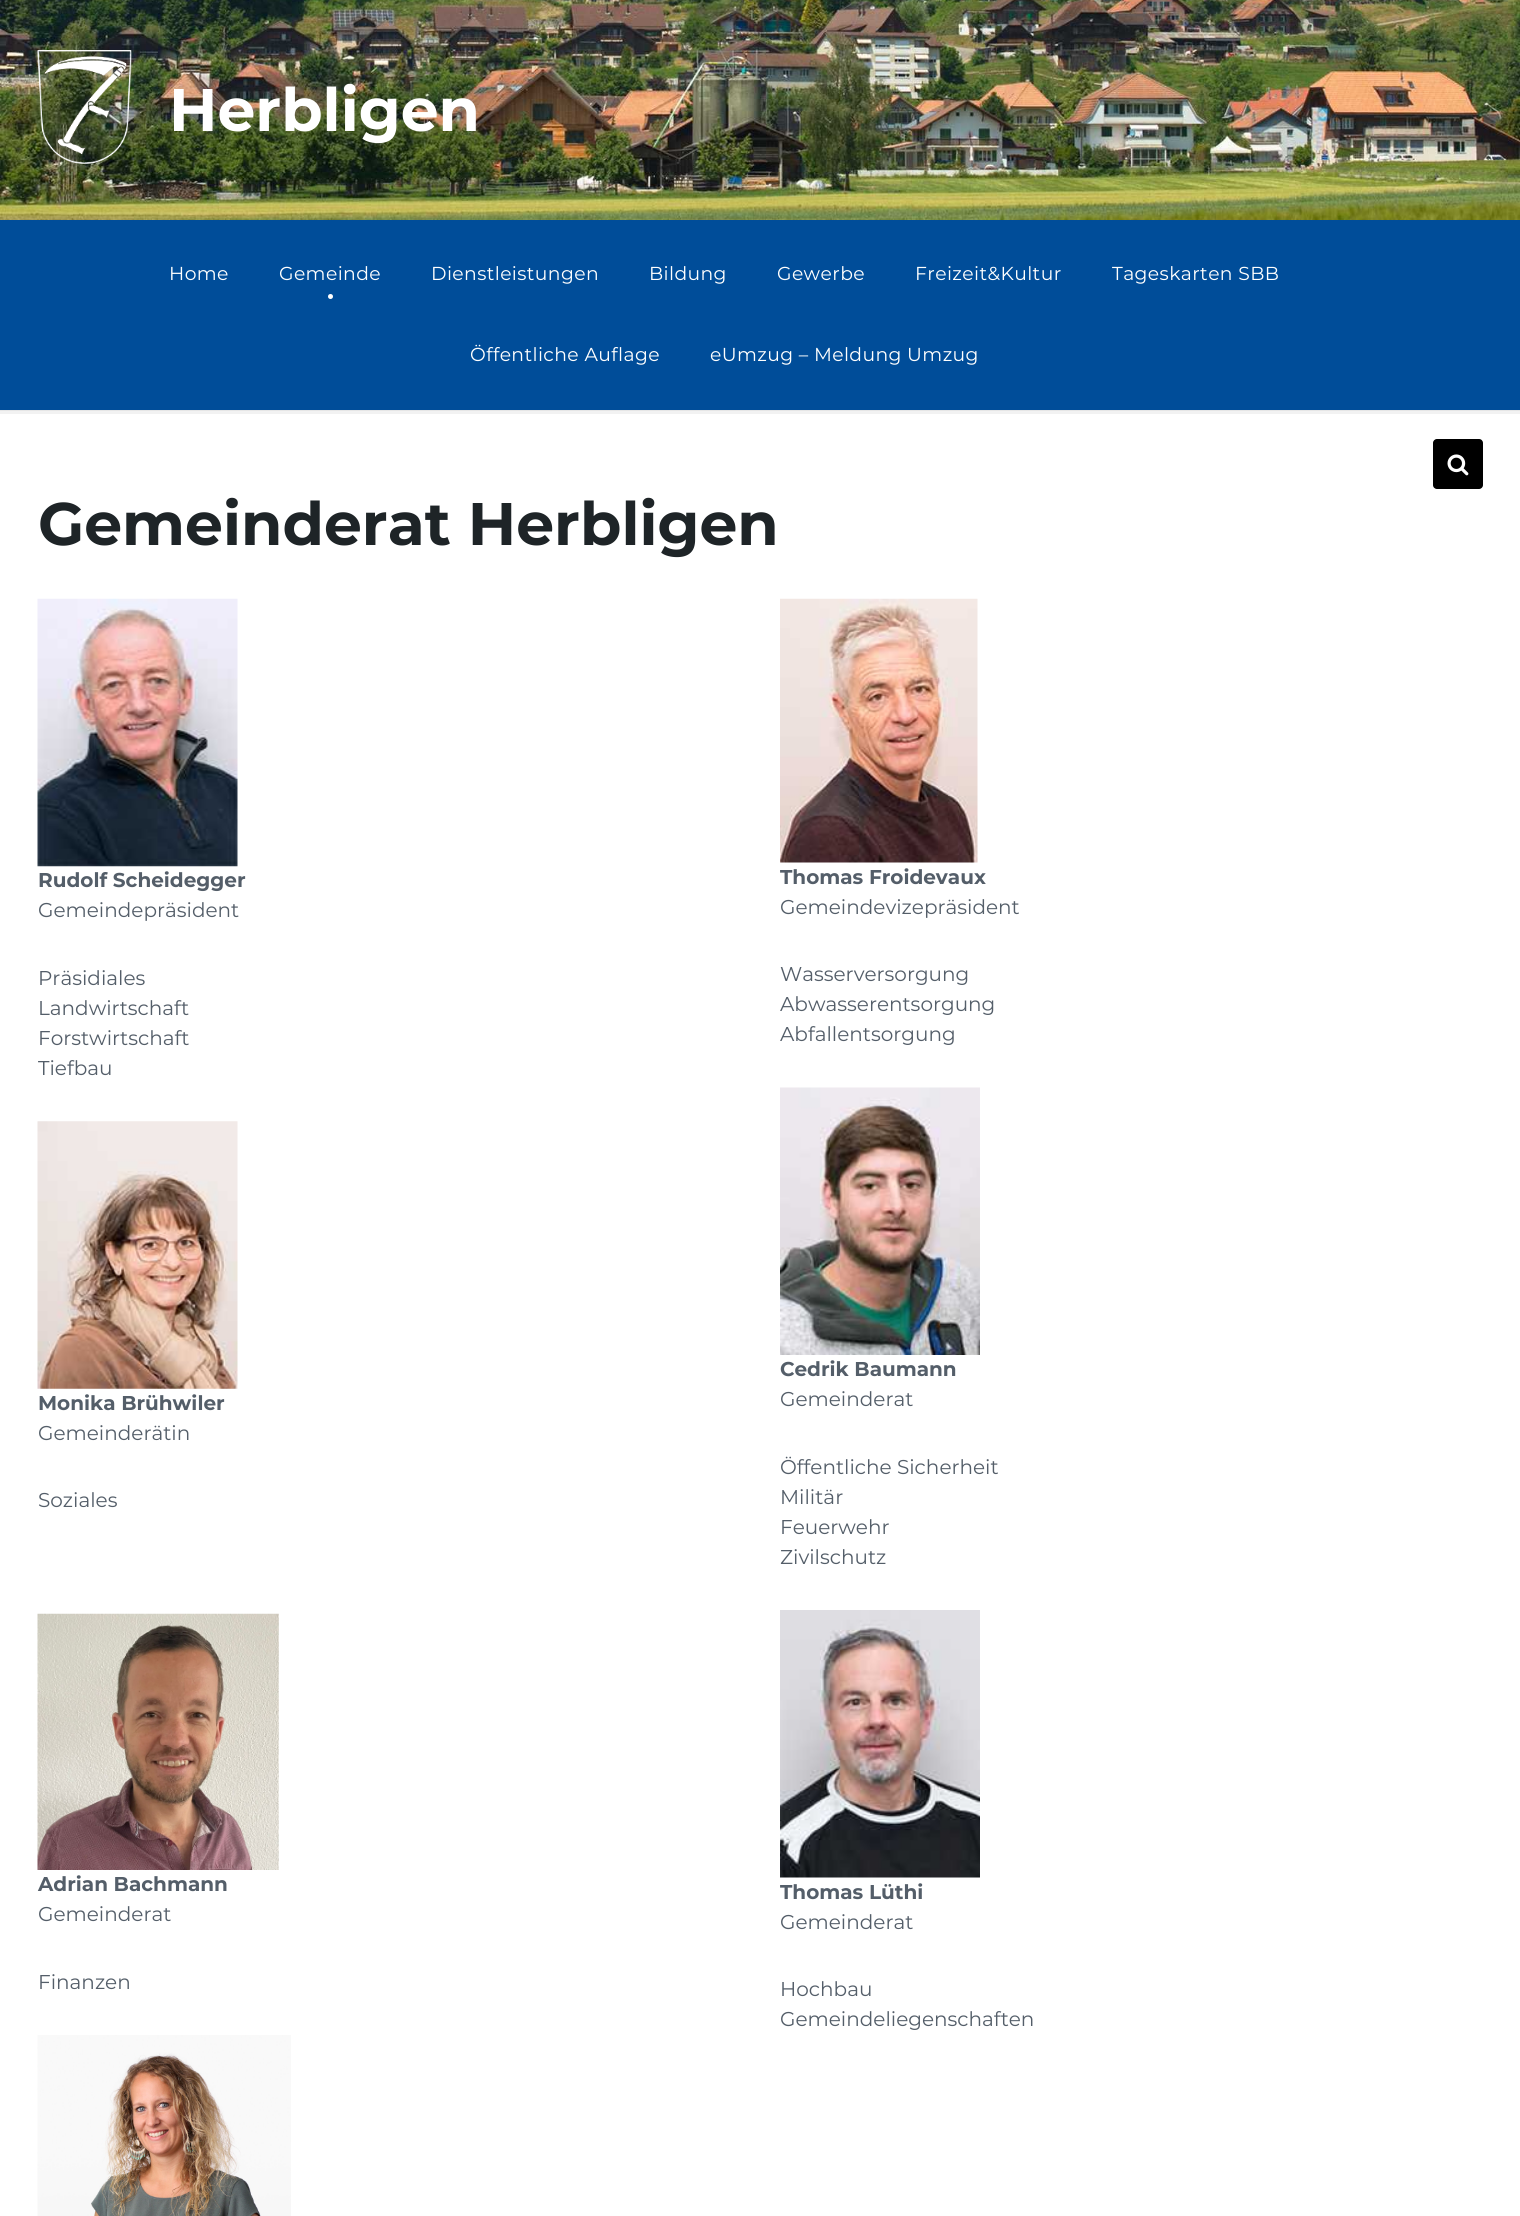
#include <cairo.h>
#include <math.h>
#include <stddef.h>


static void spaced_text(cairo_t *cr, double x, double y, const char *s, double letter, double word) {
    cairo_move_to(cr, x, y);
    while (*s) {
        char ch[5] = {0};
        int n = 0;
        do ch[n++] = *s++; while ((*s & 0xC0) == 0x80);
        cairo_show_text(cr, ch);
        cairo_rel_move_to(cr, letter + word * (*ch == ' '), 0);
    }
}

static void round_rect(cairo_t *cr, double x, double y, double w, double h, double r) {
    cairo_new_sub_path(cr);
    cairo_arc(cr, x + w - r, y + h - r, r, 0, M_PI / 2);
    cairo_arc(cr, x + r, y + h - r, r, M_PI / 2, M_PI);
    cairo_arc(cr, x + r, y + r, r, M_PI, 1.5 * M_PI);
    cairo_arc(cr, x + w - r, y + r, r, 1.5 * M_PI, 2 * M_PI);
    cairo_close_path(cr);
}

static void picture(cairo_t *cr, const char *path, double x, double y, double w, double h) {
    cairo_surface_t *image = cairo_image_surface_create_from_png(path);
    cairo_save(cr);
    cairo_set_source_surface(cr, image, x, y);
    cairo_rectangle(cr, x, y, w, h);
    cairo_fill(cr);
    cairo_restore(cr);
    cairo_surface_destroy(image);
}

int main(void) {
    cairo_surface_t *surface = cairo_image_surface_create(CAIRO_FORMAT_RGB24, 1520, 2216);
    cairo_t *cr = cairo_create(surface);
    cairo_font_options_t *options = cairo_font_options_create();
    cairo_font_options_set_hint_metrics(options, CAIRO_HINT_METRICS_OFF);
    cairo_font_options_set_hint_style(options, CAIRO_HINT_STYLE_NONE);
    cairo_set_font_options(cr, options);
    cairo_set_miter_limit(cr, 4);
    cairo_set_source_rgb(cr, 1, 1, 1);
    cairo_paint(cr);
    cairo_rectangle(cr, -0.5, 219.5, 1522, 193);
    cairo_set_source_rgb(cr, 0.949, 0.949, 0.949);
    cairo_set_line_width(cr, 3);
    cairo_stroke(cr);
    picture(cr, "img1.png", 0, 0, 1520, 220);
    picture(cr, "img2.png", 37, 50, 95, 114);
    cairo_select_font_face(cr, "Montserrat", CAIRO_FONT_SLANT_NORMAL, CAIRO_FONT_WEIGHT_BOLD);
    cairo_set_font_size(cr, 60);
    cairo_set_source_rgb(cr, 1, 1, 1);
    cairo_move_to(cr, 169, 131);
    cairo_show_text(cr, "Herbligen");
    cairo_set_source_rgb(cr, 0.902, 0.902, 0.902);
    cairo_rectangle(cr, 0, 410, 1520, 1);
    cairo_fill(cr);
    cairo_set_source_rgb(cr, 0, 0.302, 0.6);
    cairo_rectangle(cr, 0, 220, 1520, 190);
    cairo_fill(cr);
    cairo_select_font_face(cr, "Montserrat", CAIRO_FONT_SLANT_NORMAL, CAIRO_FONT_WEIGHT_NORMAL);
    cairo_set_font_size(cr, 18.75);
    cairo_set_source_rgb(cr, 1, 1, 1);
    spaced_text(cr, 169, 280, "Home", 0.4, 0);
    spaced_text(cr, 279, 280, "Gemeinde", 0.4, 0);
    cairo_new_path(cr);
    cairo_arc(cr, 330.5, 296.5, 2.5, 0, 2 * M_PI);
    cairo_fill(cr);
    spaced_text(cr, 431, 280, "Dienstleistungen", 0.4, 0);
    spaced_text(cr, 649, 280, "Bildung", 0.4, 0);
    spaced_text(cr, 777, 280, "Gewerbe", 0.4, 0);
    spaced_text(cr, 915, 280, "Freizeit&Kultur", 0.4, 0);
    spaced_text(cr, 1112, 280, "Tageskarten SBB", 0.4, 0);
    spaced_text(cr, 470, 361, "Öffentliche Auflage", 0.4, 0);
    spaced_text(cr, 710, 361, "eUmzug – Meldung Umzug", 0.4, 0);
    cairo_set_source_rgb(cr, 0, 0, 0);
    round_rect(cr, 1433, 439, 50, 50, 4);
    cairo_fill(cr);
    picture(cr, "img3.png", 1447, 454, 22, 22);
    cairo_select_font_face(cr, "Montserrat", CAIRO_FONT_SLANT_NORMAL, CAIRO_FONT_WEIGHT_BOLD);
    cairo_set_font_size(cr, 60);
    cairo_set_source_rgb(cr, 0.118, 0.141, 0.153);
    cairo_move_to(cr, 38, 545);
    cairo_show_text(cr, "Gemeinderat Herbligen");
    picture(cr, "img4.png", 37, 598, 201, 269);
    cairo_set_font_size(cr, 20);
    cairo_set_source_rgb(cr, 0.329, 0.369, 0.412);
    cairo_move_to(cr, 38, 887);
    cairo_show_text(cr, "Rudolf Scheidegger");
    cairo_select_font_face(cr, "Montserrat", CAIRO_FONT_SLANT_NORMAL, CAIRO_FONT_WEIGHT_NORMAL);
    cairo_move_to(cr, 38, 917);
    cairo_show_text(cr, "Gemeindepräsident");
    cairo_move_to(cr, 38, 985);
    cairo_show_text(cr, "Präsidiales");
    cairo_move_to(cr, 38, 1015);
    cairo_show_text(cr, "Landwirtschaft");
    cairo_move_to(cr, 38, 1045);
    cairo_show_text(cr, "Forstwirtschaft");
    cairo_move_to(cr, 38, 1075);
    cairo_show_text(cr, "Tiefbau");
    picture(cr, "img5.png", 37, 1121, 201, 268);
    cairo_select_font_face(cr, "Montserrat", CAIRO_FONT_SLANT_NORMAL, CAIRO_FONT_WEIGHT_BOLD);
    cairo_move_to(cr, 38, 1410);
    cairo_show_text(cr, "Monika Brühwiler");
    cairo_select_font_face(cr, "Montserrat", CAIRO_FONT_SLANT_NORMAL, CAIRO_FONT_WEIGHT_NORMAL);
    cairo_move_to(cr, 38, 1440);
    cairo_show_text(cr, "Gemeinderätin");
    cairo_move_to(cr, 38, 1507);
    cairo_show_text(cr, "Soziales");
    picture(cr, "img6.png", 37, 1613, 242, 257);
    cairo_select_font_face(cr, "Montserrat", CAIRO_FONT_SLANT_NORMAL, CAIRO_FONT_WEIGHT_BOLD);
    cairo_move_to(cr, 38, 1891);
    cairo_show_text(cr, "Adrian Bachmann");
    cairo_select_font_face(cr, "Montserrat", CAIRO_FONT_SLANT_NORMAL, CAIRO_FONT_WEIGHT_NORMAL);
    cairo_move_to(cr, 38, 1921);
    cairo_show_text(cr, "Gemeinderat");
    cairo_move_to(cr, 38, 1989);
    cairo_show_text(cr, "Finanzen");
    picture(cr, "img7.png", 37, 2035, 254, 181);
    picture(cr, "img8.png", 780, 598, 198, 265);
    cairo_select_font_face(cr, "Montserrat", CAIRO_FONT_SLANT_NORMAL, CAIRO_FONT_WEIGHT_BOLD);
    cairo_move_to(cr, 780, 884);
    cairo_show_text(cr, "Thomas Froidevaux");
    cairo_select_font_face(cr, "Montserrat", CAIRO_FONT_SLANT_NORMAL, CAIRO_FONT_WEIGHT_NORMAL);
    cairo_move_to(cr, 780, 914);
    cairo_show_text(cr, "Gemeindevizepräsident");
    cairo_move_to(cr, 780, 981);
    cairo_show_text(cr, "Wasserversorgung");
    cairo_move_to(cr, 780, 1011);
    cairo_show_text(cr, "Abwasserentsorgung");
    cairo_move_to(cr, 780, 1041);
    cairo_show_text(cr, "Abfallentsorgung");
    picture(cr, "img9.png", 780, 1087, 200, 268);
    cairo_select_font_face(cr, "Montserrat", CAIRO_FONT_SLANT_NORMAL, CAIRO_FONT_WEIGHT_BOLD);
    cairo_move_to(cr, 780, 1376);
    cairo_show_text(cr, "Cedrik Baumann");
    cairo_select_font_face(cr, "Montserrat", CAIRO_FONT_SLANT_NORMAL, CAIRO_FONT_WEIGHT_NORMAL);
    cairo_move_to(cr, 780, 1406);
    cairo_show_text(cr, "Gemeinderat");
    cairo_move_to(cr, 780, 1474);
    cairo_show_text(cr, "Öffentliche Sicherheit");
    cairo_move_to(cr, 780, 1504);
    cairo_show_text(cr, "Militär");
    cairo_move_to(cr, 780, 1534);
    cairo_show_text(cr, "Feuerwehr");
    cairo_move_to(cr, 780, 1564);
    cairo_show_text(cr, "Zivilschutz");
    picture(cr, "img10.png", 780, 1610, 200, 268);
    cairo_select_font_face(cr, "Montserrat", CAIRO_FONT_SLANT_NORMAL, CAIRO_FONT_WEIGHT_BOLD);
    cairo_move_to(cr, 780, 1899);
    cairo_show_text(cr, "Thomas Lüthi");
    cairo_select_font_face(cr, "Montserrat", CAIRO_FONT_SLANT_NORMAL, CAIRO_FONT_WEIGHT_NORMAL);
    cairo_move_to(cr, 780, 1929);
    cairo_show_text(cr, "Gemeinderat");
    cairo_move_to(cr, 780, 1996);
    cairo_show_text(cr, "Hochbau");
    cairo_move_to(cr, 780, 2026);
    cairo_show_text(cr, "Gemeindeliegenschaften");
    cairo_surface_write_to_png(surface, "page.png");
    cairo_font_options_destroy(options);
    cairo_destroy(cr);
    cairo_surface_destroy(surface);
    return 0;
}
